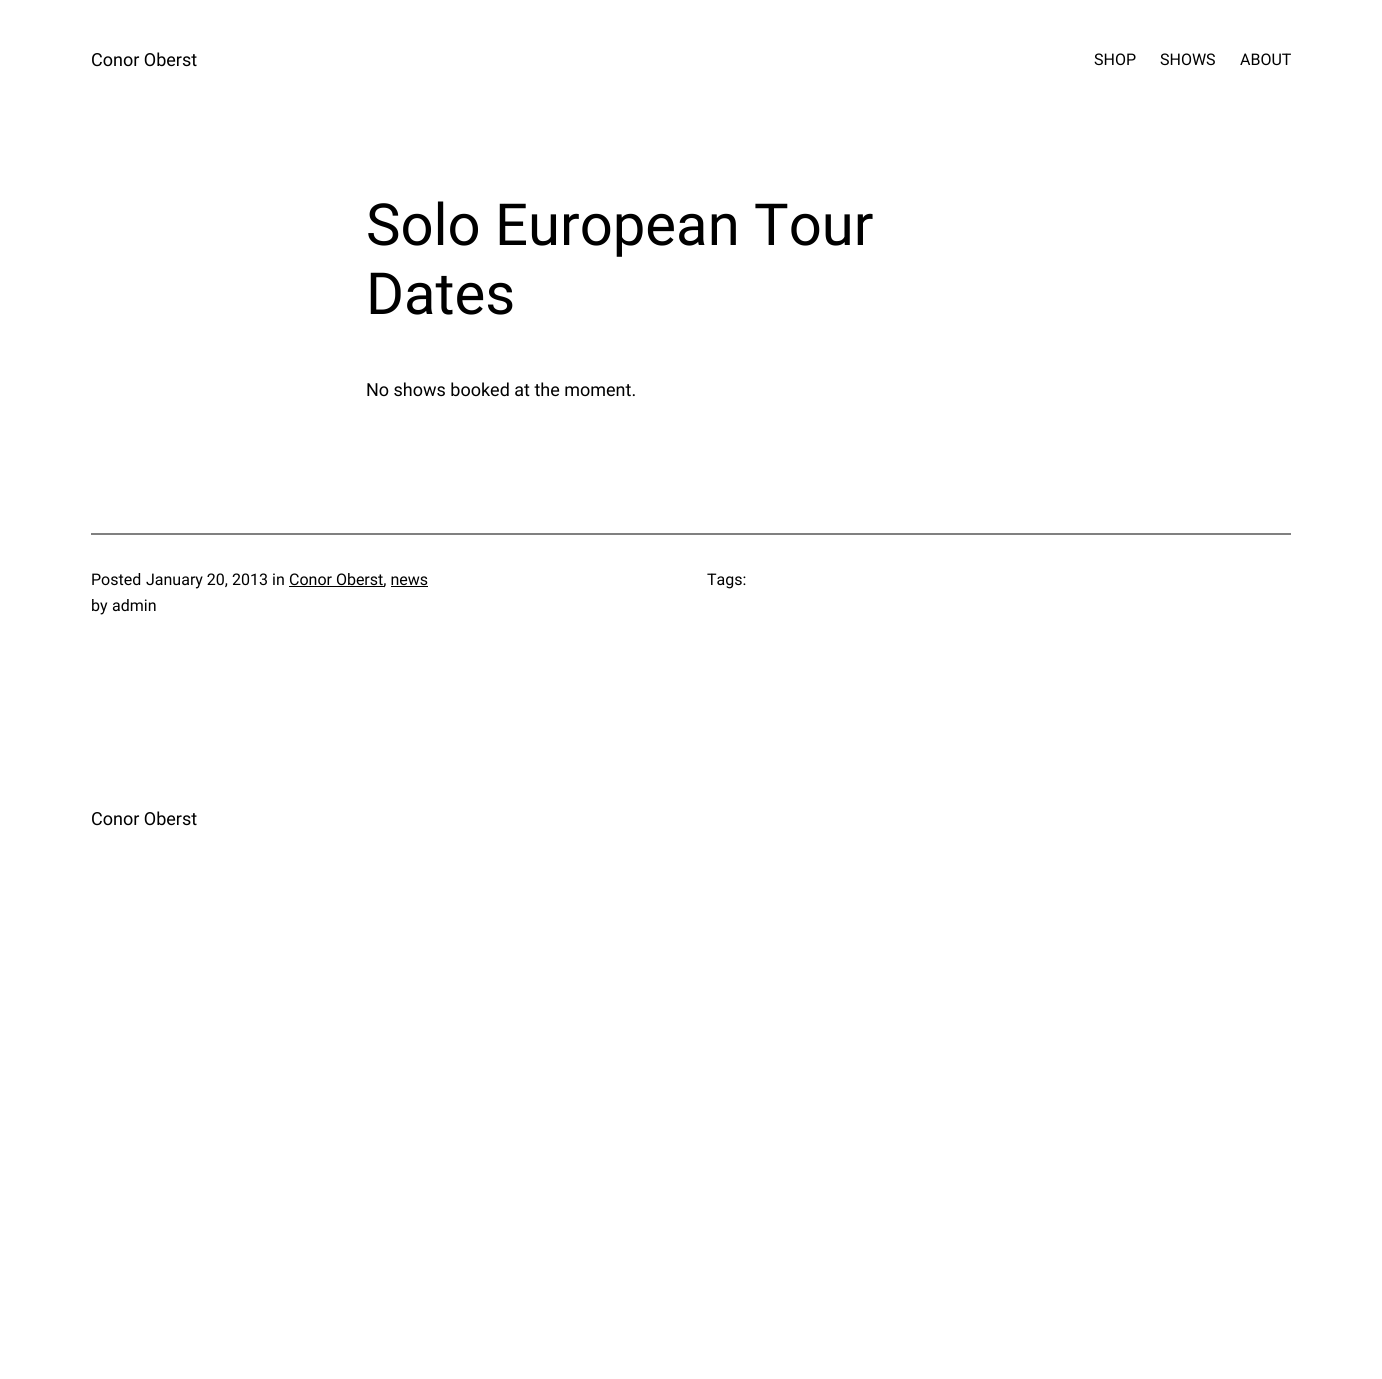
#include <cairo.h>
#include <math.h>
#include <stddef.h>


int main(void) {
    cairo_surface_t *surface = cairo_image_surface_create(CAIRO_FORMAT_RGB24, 1382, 1379);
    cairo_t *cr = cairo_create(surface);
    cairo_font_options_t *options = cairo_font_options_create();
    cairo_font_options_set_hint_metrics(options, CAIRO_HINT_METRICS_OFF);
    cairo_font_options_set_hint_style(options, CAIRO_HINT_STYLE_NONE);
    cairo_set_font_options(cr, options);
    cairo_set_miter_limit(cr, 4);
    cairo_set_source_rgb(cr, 1, 1, 1);
    cairo_paint(cr);
    cairo_select_font_face(cr, "Roboto", CAIRO_FONT_SLANT_NORMAL, CAIRO_FONT_WEIGHT_NORMAL);
    cairo_set_font_size(cr, 18);
    cairo_set_source_rgb(cr, 0, 0, 0);
    cairo_move_to(cr, 91, 66);
    cairo_show_text(cr, "Conor Oberst");
    cairo_set_font_size(cr, 16);
    cairo_move_to(cr, 1094, 65);
    cairo_show_text(cr, "SHOP");
    cairo_move_to(cr, 1160, 65);
    cairo_show_text(cr, "SHOWS");
    cairo_move_to(cr, 1240, 65);
    cairo_show_text(cr, "ABOUT");
    cairo_set_font_size(cr, 58);
    cairo_move_to(cr, 366, 245);
    cairo_show_text(cr, "Solo European Tour");
    cairo_move_to(cr, 366, 314);
    cairo_show_text(cr, "Dates");
    cairo_set_font_size(cr, 18);
    cairo_move_to(cr, 366, 396);
    cairo_show_text(cr, "No shows booked at the moment.");
    cairo_set_source_rgb(cr, 0.502, 0.502, 0.502);
    cairo_rectangle(cr, 91, 533, 1200, 2);
    cairo_fill(cr);
    cairo_set_font_size(cr, 16);
    cairo_set_source_rgb(cr, 0, 0, 0);
    cairo_move_to(cr, 91, 585);
    cairo_show_text(cr, "Posted");
    cairo_move_to(cr, 146, 585);
    cairo_show_text(cr, "January 20, 2013");
    cairo_move_to(cr, 272, 585);
    cairo_show_text(cr, "in");
    cairo_rectangle(cr, 289, 586, 95, 1);
    cairo_fill(cr);
    cairo_move_to(cr, 289, 585);
    cairo_show_text(cr, "Conor Oberst, news");
    cairo_rectangle(cr, 391, 586, 37, 1);
    cairo_fill(cr);
    cairo_move_to(cr, 91, 611);
    cairo_show_text(cr, "by");
    cairo_move_to(cr, 112, 611);
    cairo_show_text(cr, "admin");
    cairo_move_to(cr, 707, 585);
    cairo_show_text(cr, "Tags:");
    cairo_set_font_size(cr, 18);
    cairo_move_to(cr, 91, 825);
    cairo_show_text(cr, "Conor Oberst");
    cairo_surface_write_to_png(surface, "page.png");
    cairo_font_options_destroy(options);
    cairo_destroy(cr);
    cairo_surface_destroy(surface);
    return 0;
}
